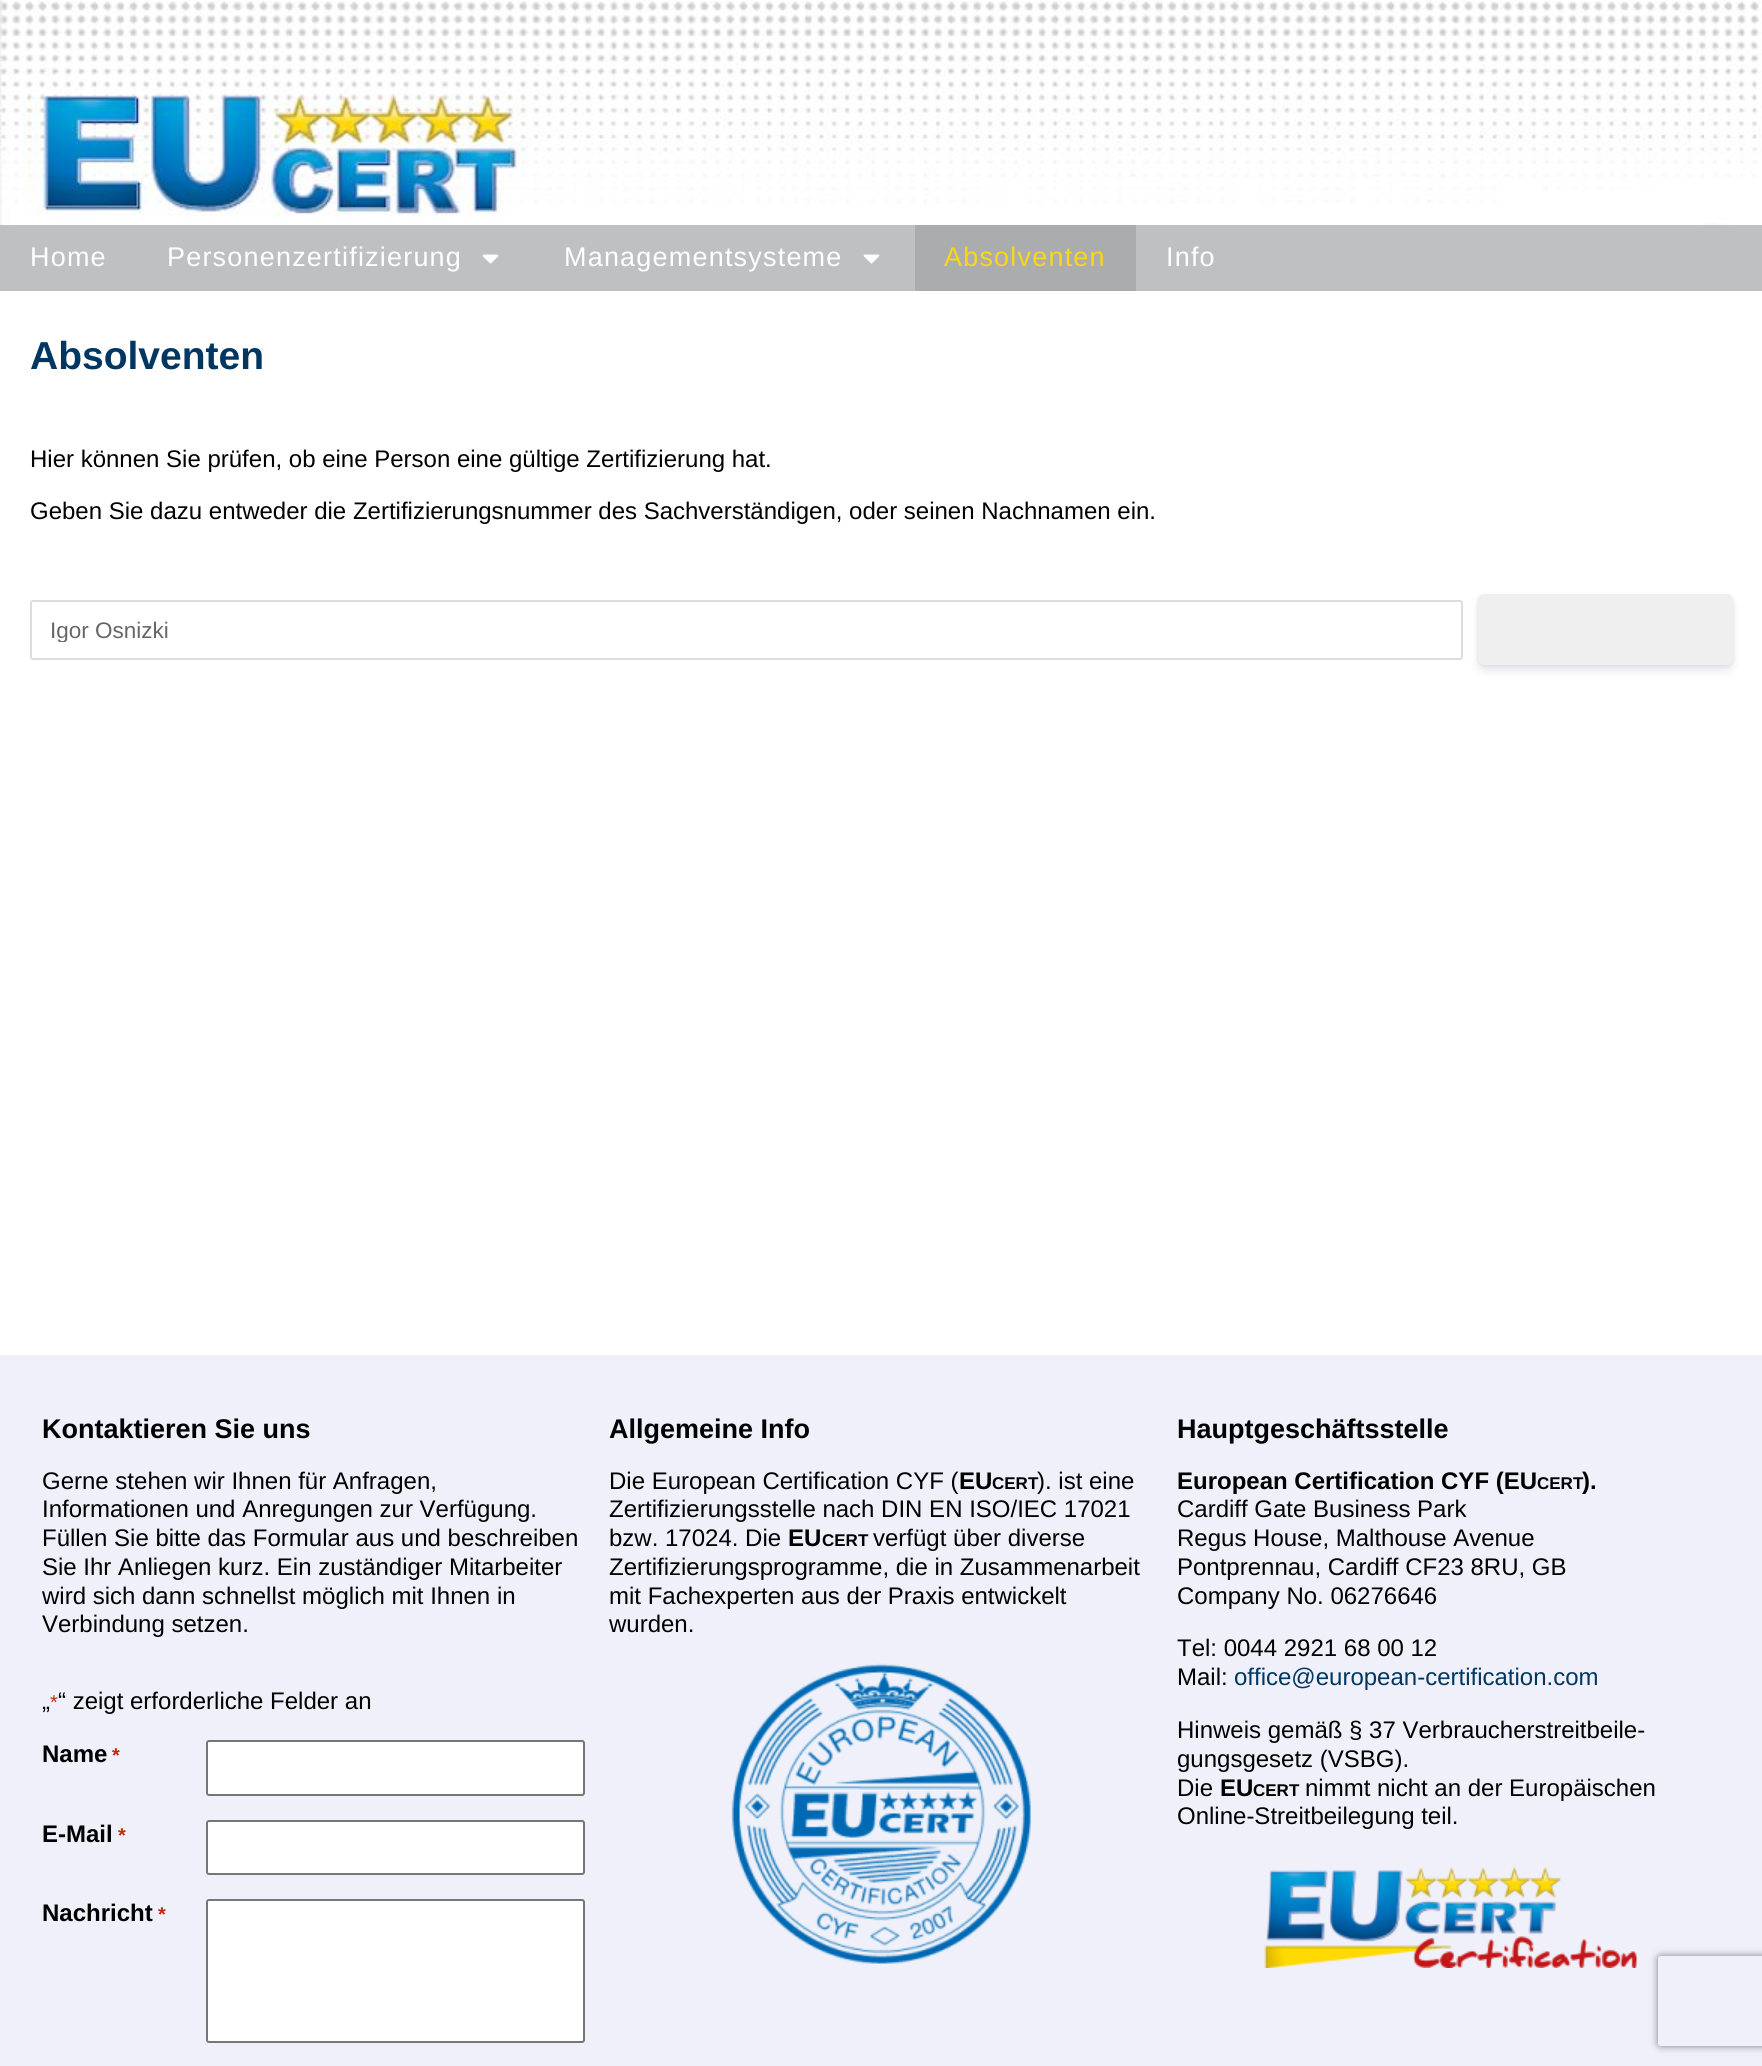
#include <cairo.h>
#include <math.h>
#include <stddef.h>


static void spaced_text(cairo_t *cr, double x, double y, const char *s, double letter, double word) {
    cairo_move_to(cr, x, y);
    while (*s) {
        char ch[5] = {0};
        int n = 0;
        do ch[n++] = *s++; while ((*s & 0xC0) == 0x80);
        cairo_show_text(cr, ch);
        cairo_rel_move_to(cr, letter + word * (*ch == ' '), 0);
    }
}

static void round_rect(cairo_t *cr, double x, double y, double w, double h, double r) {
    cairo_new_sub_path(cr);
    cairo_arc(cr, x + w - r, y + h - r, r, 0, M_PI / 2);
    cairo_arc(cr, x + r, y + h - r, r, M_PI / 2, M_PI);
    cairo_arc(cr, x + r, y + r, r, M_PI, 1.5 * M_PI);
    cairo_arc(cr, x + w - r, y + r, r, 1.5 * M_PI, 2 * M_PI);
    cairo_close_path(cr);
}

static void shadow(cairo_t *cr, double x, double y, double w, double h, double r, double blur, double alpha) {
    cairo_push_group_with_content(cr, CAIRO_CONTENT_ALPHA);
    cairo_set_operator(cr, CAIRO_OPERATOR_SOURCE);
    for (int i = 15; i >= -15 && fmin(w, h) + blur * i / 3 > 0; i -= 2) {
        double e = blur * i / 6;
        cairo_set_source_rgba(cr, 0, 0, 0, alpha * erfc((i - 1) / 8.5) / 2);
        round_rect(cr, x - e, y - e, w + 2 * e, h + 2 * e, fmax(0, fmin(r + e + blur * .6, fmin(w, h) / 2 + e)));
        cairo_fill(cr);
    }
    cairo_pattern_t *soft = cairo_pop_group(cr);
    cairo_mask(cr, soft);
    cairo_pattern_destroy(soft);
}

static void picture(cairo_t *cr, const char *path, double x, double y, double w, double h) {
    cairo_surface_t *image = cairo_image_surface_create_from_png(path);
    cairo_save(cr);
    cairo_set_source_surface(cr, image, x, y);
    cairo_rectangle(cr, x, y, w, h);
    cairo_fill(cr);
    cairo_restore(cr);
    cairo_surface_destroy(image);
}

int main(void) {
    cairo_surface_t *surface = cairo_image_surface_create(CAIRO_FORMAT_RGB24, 1762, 2066);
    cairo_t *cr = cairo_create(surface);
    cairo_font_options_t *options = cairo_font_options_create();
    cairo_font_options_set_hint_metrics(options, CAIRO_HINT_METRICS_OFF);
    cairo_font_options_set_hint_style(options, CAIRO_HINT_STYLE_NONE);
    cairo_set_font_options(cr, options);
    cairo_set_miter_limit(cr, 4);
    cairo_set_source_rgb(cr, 1, 1, 1);
    cairo_paint(cr);
    picture(cr, "img1.png", 0, 0, 1762, 225);
    cairo_set_source_rgb(cr, 0.745, 0.753, 0.761);
    cairo_rectangle(cr, 0, 225, 1762, 66);
    cairo_fill(cr);
    cairo_select_font_face(cr, "Liberation Sans", CAIRO_FONT_SLANT_NORMAL, CAIRO_FONT_WEIGHT_NORMAL);
    cairo_set_font_size(cr, 27);
    cairo_set_source_rgb(cr, 1, 1, 1);
    spaced_text(cr, 30, 266, "Home", 1.2, 0);
    spaced_text(cr, 167, 266, "Personenzertifizierung", 1.2, 0);
    picture(cr, "img2.png", 482, 254, 17, 10);
    spaced_text(cr, 564, 266, "Managementsysteme", 1.2, 0);
    picture(cr, "img2.png", 863, 254, 17, 10);
    cairo_set_source_rgb(cr, 0.667, 0.675, 0.682);
    cairo_rectangle(cr, 915, 225, 221, 66);
    cairo_fill(cr);
    cairo_set_source_rgb(cr, 0.98, 0.843, 0.098);
    spaced_text(cr, 944, 266, "Absolventen", 1.2, 0);
    cairo_set_source_rgb(cr, 1, 1, 1);
    spaced_text(cr, 1166, 266, "Info", 1.2, 0);
    cairo_select_font_face(cr, "Liberation Sans", CAIRO_FONT_SLANT_NORMAL, CAIRO_FONT_WEIGHT_BOLD);
    cairo_set_font_size(cr, 39);
    cairo_set_source_rgb(cr, 0, 0.216, 0.384);
    cairo_move_to(cr, 30, 369);
    cairo_show_text(cr, "Absolventen");
    cairo_select_font_face(cr, "Liberation Sans", CAIRO_FONT_SLANT_NORMAL, CAIRO_FONT_WEIGHT_NORMAL);
    cairo_set_font_size(cr, 24);
    cairo_set_source_rgb(cr, 0, 0, 0);
    cairo_move_to(cr, 30, 467);
    cairo_show_text(cr, "Hier können Sie prüfen, ob eine Person eine gültige Zertifizierung hat.");
    cairo_move_to(cr, 30, 519);
    cairo_show_text(cr, "Geben Sie dazu entweder die Zertifizierungsnummer des Sachverständigen, oder seinen Nachnamen ein.");
    round_rect(cr, 31, 601, 1431, 58, 2);
    cairo_set_source_rgb(cr, 0.867, 0.867, 0.867);
    cairo_stroke(cr);
    cairo_save(cr);
    cairo_rectangle(cr, 50, 617, 1387, 25);
    cairo_clip(cr);
    cairo_set_font_size(cr, 22.5);
    cairo_set_source_rgb(cr, 0.4, 0.4, 0.4);
    cairo_move_to(cr, 50, 638);
    cairo_show_text(cr, "Igor Osnizki");
    cairo_restore(cr);
    cairo_set_source_rgb(cr, 0, 0, 0);
    shadow(cr, 1478, 596, 255, 70, 6, 2, 0.08);
    cairo_set_source_rgb(cr, 0.196, 0.196, 0.365);
    shadow(cr, 1478, 600, 255, 71, 6, 4.5, 0.11);
    cairo_set_source_rgb(cr, 0.937, 0.937, 0.937);
    round_rect(cr, 1478, 594, 255, 71, 6);
    cairo_fill(cr);
    cairo_set_source_rgb(cr, 0.937, 0.941, 0.973);
    cairo_rectangle(cr, 0, 1355, 1762, 711);
    cairo_fill(cr);
    cairo_select_font_face(cr, "Liberation Sans", CAIRO_FONT_SLANT_NORMAL, CAIRO_FONT_WEIGHT_BOLD);
    cairo_set_font_size(cr, 27);
    cairo_set_source_rgb(cr, 0, 0, 0);
    cairo_move_to(cr, 42, 1438);
    cairo_show_text(cr, "Kontaktieren Sie uns");
    cairo_select_font_face(cr, "Liberation Sans", CAIRO_FONT_SLANT_NORMAL, CAIRO_FONT_WEIGHT_NORMAL);
    cairo_set_font_size(cr, 24);
    cairo_move_to(cr, 42, 1489);
    cairo_show_text(cr, "Gerne stehen wir Ihnen für Anfragen,");
    cairo_move_to(cr, 42, 1517);
    cairo_show_text(cr, "Informationen und Anregungen zur Verfügung.");
    cairo_move_to(cr, 42, 1546);
    cairo_show_text(cr, "Füllen Sie bitte das Formular aus und beschreiben");
    cairo_move_to(cr, 42, 1575);
    cairo_show_text(cr, "Sie Ihr Anliegen kurz. Ein zuständiger Mitarbeiter");
    cairo_move_to(cr, 42, 1604);
    cairo_show_text(cr, "wird sich dann schnellst möglich mit Ihnen in");
    cairo_move_to(cr, 42, 1632);
    cairo_show_text(cr, "Verbindung setzen.");
    cairo_set_font_size(cr, 20);
    cairo_set_source_rgb(cr, 0.753, 0.169, 0.039);
    cairo_move_to(cr, 50, 1709);
    cairo_show_text(cr, "*");
    cairo_set_font_size(cr, 24);
    cairo_set_source_rgb(cr, 0, 0, 0);
    cairo_move_to(cr, 58, 1709);
    cairo_show_text(cr, "“ zeigt erforderliche Felder an");
    cairo_move_to(cr, 42, 1709);
    cairo_show_text(cr, "„");
    cairo_select_font_face(cr, "Liberation Sans", CAIRO_FONT_SLANT_NORMAL, CAIRO_FONT_WEIGHT_BOLD);
    cairo_move_to(cr, 42, 1762);
    cairo_show_text(cr, "Name");
    cairo_set_font_size(cr, 20);
    cairo_set_source_rgb(cr, 0.753, 0.169, 0.039);
    cairo_move_to(cr, 112, 1762);
    cairo_show_text(cr, "*");
    cairo_set_source_rgb(cr, 1, 1, 1);
    round_rect(cr, 207, 1741, 377, 54, 2);
    cairo_fill_preserve(cr);
    cairo_set_source_rgb(cr, 0.463, 0.463, 0.463);
    cairo_stroke(cr);
    cairo_set_font_size(cr, 24);
    cairo_set_source_rgb(cr, 0, 0, 0);
    cairo_move_to(cr, 42, 1842);
    cairo_show_text(cr, "E-Mail");
    cairo_set_font_size(cr, 20);
    cairo_set_source_rgb(cr, 0.753, 0.169, 0.039);
    cairo_move_to(cr, 118, 1842);
    cairo_show_text(cr, "*");
    cairo_set_source_rgb(cr, 1, 1, 1);
    round_rect(cr, 207, 1821, 377, 53, 2);
    cairo_fill_preserve(cr);
    cairo_set_source_rgb(cr, 0.463, 0.463, 0.463);
    cairo_stroke(cr);
    cairo_set_font_size(cr, 24);
    cairo_set_source_rgb(cr, 0, 0, 0);
    cairo_move_to(cr, 42, 1921);
    cairo_show_text(cr, "Nachricht");
    cairo_set_font_size(cr, 20);
    cairo_set_source_rgb(cr, 0.753, 0.169, 0.039);
    cairo_move_to(cr, 158, 1921);
    cairo_show_text(cr, "*");
    cairo_set_source_rgb(cr, 1, 1, 1);
    round_rect(cr, 207, 1900, 377, 142, 2);
    cairo_fill_preserve(cr);
    cairo_set_source_rgb(cr, 0.463, 0.463, 0.463);
    cairo_stroke(cr);
    cairo_save(cr);
    cairo_set_fill_rule(cr, CAIRO_FILL_RULE_EVEN_ODD);
    cairo_new_path(cr);
    cairo_move_to(cr, 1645, 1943);
    cairo_line_to(cr, 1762, 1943);
    cairo_line_to(cr, 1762, 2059);
    cairo_line_to(cr, 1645, 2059);
    cairo_close_path(cr);
    cairo_move_to(cr, 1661, 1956);
    cairo_line_to(cr, 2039, 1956);
    cairo_curve_to(cr, 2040.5, 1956, 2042, 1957.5, 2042, 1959);
    cairo_line_to(cr, 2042, 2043);
    cairo_curve_to(cr, 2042, 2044.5, 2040.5, 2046, 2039, 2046);
    cairo_line_to(cr, 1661, 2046);
    cairo_curve_to(cr, 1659.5, 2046, 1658, 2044.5, 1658, 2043);
    cairo_line_to(cr, 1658, 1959);
    cairo_curve_to(cr, 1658, 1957.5, 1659.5, 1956, 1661, 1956);
    cairo_close_path(cr);
    cairo_clip(cr);
    cairo_set_source_rgb(cr, 0.502, 0.502, 0.502);
    shadow(cr, 1658, 1956, 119, 90, 3, 4, 1);
    cairo_restore(cr);
    cairo_set_font_size(cr, 27);
    cairo_set_source_rgb(cr, 0, 0, 0);
    cairo_move_to(cr, 609, 1438);
    cairo_show_text(cr, "Allgemeine Info");
    cairo_select_font_face(cr, "Liberation Sans", CAIRO_FONT_SLANT_NORMAL, CAIRO_FONT_WEIGHT_NORMAL);
    cairo_set_font_size(cr, 24);
    cairo_move_to(cr, 609, 1489);
    cairo_show_text(cr, "Die European Certification CYF (");
    cairo_select_font_face(cr, "Liberation Sans", CAIRO_FONT_SLANT_NORMAL, CAIRO_FONT_WEIGHT_BOLD);
    cairo_move_to(cr, 959, 1489);
    cairo_show_text(cr, "EU");
    cairo_set_font_size(cr, 17);
    cairo_move_to(cr, 992, 1489);
    cairo_show_text(cr, "CERT");
    cairo_select_font_face(cr, "Liberation Sans", CAIRO_FONT_SLANT_NORMAL, CAIRO_FONT_WEIGHT_NORMAL);
    cairo_set_font_size(cr, 24);
    cairo_move_to(cr, 1037, 1489);
    cairo_show_text(cr, "). ist eine");
    cairo_move_to(cr, 609, 1517);
    cairo_show_text(cr, "Zertifizierungsstelle nach DIN EN ISO/IEC 17021");
    cairo_move_to(cr, 609, 1546);
    cairo_show_text(cr, "bzw. 17024. Die");
    cairo_select_font_face(cr, "Liberation Sans", CAIRO_FONT_SLANT_NORMAL, CAIRO_FONT_WEIGHT_BOLD);
    cairo_move_to(cr, 788, 1546);
    cairo_show_text(cr, "EU");
    cairo_set_font_size(cr, 17);
    cairo_move_to(cr, 822, 1546);
    cairo_show_text(cr, "CERT");
    cairo_select_font_face(cr, "Liberation Sans", CAIRO_FONT_SLANT_NORMAL, CAIRO_FONT_WEIGHT_NORMAL);
    cairo_set_font_size(cr, 24);
    cairo_move_to(cr, 873, 1546);
    cairo_show_text(cr, "verfügt über diverse");
    cairo_move_to(cr, 609, 1575);
    cairo_show_text(cr, "Zertifizierungsprogramme, die in Zusammenarbeit");
    cairo_move_to(cr, 609, 1604);
    cairo_show_text(cr, "mit Fachexperten aus der Praxis entwickelt");
    cairo_move_to(cr, 609, 1632);
    cairo_show_text(cr, "wurden.");
    picture(cr, "img3.png", 731, 1663, 300, 301);
    cairo_select_font_face(cr, "Liberation Sans", CAIRO_FONT_SLANT_NORMAL, CAIRO_FONT_WEIGHT_BOLD);
    cairo_set_font_size(cr, 27);
    cairo_move_to(cr, 1177, 1438);
    cairo_show_text(cr, "Hauptgeschäftsstelle");
    cairo_set_font_size(cr, 24);
    cairo_move_to(cr, 1177, 1489);
    cairo_show_text(cr, "European Certification CYF (EU");
    cairo_set_font_size(cr, 17);
    cairo_move_to(cr, 1537, 1489);
    cairo_show_text(cr, "CERT");
    cairo_set_font_size(cr, 24);
    cairo_move_to(cr, 1582, 1489);
    cairo_show_text(cr, ").");
    cairo_select_font_face(cr, "Liberation Sans", CAIRO_FONT_SLANT_NORMAL, CAIRO_FONT_WEIGHT_NORMAL);
    cairo_move_to(cr, 1177, 1517);
    cairo_show_text(cr, "Cardiff Gate Business Park");
    cairo_move_to(cr, 1177, 1546);
    cairo_show_text(cr, "Regus House, Malthouse Avenue");
    cairo_move_to(cr, 1177, 1575);
    cairo_show_text(cr, "Pontprennau, Cardiff CF23 8RU, GB");
    cairo_move_to(cr, 1177, 1604);
    cairo_show_text(cr, "Company No. 06276646");
    cairo_move_to(cr, 1177, 1656);
    cairo_show_text(cr, "Tel: 0044 2921 68 00 12");
    cairo_move_to(cr, 1177, 1685);
    cairo_show_text(cr, "Mail:");
    cairo_set_source_rgb(cr, 0, 0.216, 0.384);
    cairo_move_to(cr, 1234, 1685);
    cairo_show_text(cr, "office@european-certification.com");
    cairo_set_source_rgb(cr, 0, 0, 0);
    cairo_move_to(cr, 1177, 1738);
    cairo_show_text(cr, "Hinweis gemäß § 37 Verbraucherstreitbeile-");
    cairo_move_to(cr, 1177, 1767);
    cairo_show_text(cr, "gungsgesetz (VSBG).");
    cairo_move_to(cr, 1177, 1796);
    cairo_show_text(cr, "Die");
    cairo_select_font_face(cr, "Liberation Sans", CAIRO_FONT_SLANT_NORMAL, CAIRO_FONT_WEIGHT_BOLD);
    cairo_move_to(cr, 1220, 1796);
    cairo_show_text(cr, "EU");
    cairo_set_font_size(cr, 17);
    cairo_move_to(cr, 1253, 1796);
    cairo_show_text(cr, "CERT");
    cairo_select_font_face(cr, "Liberation Sans", CAIRO_FONT_SLANT_NORMAL, CAIRO_FONT_WEIGHT_NORMAL);
    cairo_set_font_size(cr, 24);
    cairo_move_to(cr, 1305, 1796);
    cairo_show_text(cr, "nimmt nicht an der Europäischen");
    cairo_move_to(cr, 1177, 1824);
    cairo_show_text(cr, "Online-Streitbeilegung teil.");
    picture(cr, "img4.png", 1264, 1867, 373, 101);
    cairo_surface_write_to_png(surface, "page.png");
    cairo_font_options_destroy(options);
    cairo_destroy(cr);
    cairo_surface_destroy(surface);
    return 0;
}
